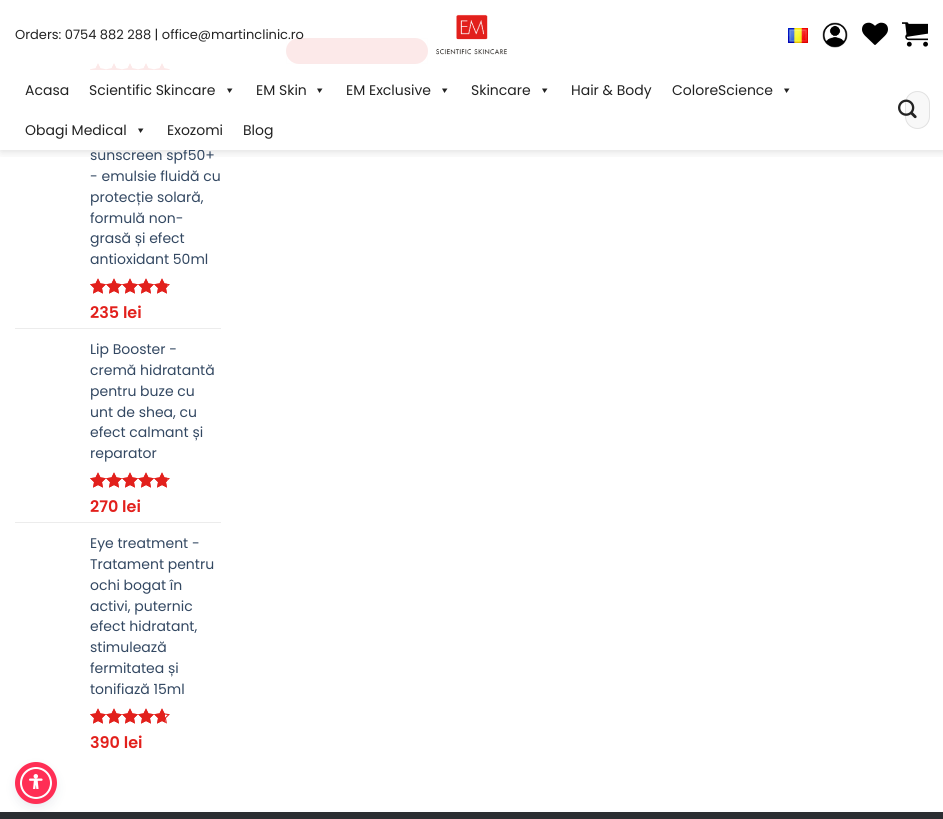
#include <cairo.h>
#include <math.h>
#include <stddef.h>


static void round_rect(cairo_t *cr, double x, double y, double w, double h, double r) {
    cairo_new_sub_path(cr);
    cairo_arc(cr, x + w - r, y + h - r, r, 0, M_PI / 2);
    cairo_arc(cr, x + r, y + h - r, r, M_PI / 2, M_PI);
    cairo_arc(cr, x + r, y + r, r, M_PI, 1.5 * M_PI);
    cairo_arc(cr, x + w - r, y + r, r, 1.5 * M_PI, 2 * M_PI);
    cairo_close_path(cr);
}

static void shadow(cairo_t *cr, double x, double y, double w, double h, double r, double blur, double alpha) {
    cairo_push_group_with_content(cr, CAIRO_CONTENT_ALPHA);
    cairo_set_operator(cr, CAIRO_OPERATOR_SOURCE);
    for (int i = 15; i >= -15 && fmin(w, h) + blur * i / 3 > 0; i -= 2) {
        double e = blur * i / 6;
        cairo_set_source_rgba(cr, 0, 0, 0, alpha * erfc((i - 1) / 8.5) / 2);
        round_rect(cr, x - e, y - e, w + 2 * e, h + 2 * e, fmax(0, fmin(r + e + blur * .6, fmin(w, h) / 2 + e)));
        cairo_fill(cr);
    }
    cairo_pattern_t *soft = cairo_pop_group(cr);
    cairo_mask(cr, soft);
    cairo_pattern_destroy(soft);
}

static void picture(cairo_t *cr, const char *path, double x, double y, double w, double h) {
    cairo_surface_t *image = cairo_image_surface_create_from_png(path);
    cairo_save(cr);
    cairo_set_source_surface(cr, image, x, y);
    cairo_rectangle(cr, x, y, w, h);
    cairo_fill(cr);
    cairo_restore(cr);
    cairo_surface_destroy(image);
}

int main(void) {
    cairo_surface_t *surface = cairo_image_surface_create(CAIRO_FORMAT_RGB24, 943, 819);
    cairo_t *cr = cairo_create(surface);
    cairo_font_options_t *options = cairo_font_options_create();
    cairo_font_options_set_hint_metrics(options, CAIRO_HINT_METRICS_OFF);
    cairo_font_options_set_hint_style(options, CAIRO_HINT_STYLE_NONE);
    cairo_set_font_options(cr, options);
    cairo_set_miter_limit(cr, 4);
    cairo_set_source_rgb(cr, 1, 1, 1);
    cairo_paint(cr);
    cairo_set_source_rgb(cr, 0.886, 0.125, 0.11);
    round_rect(cr, 286, 38, 142, 26, 13);
    cairo_fill(cr);
    cairo_rectangle(cr, 286.5, 38.5, 141, 25);
    cairo_set_source_rgba(cr, 0, 0, 0, 0.05);
    cairo_set_line_width(cr, 1);
    cairo_stroke(cr);
    picture(cr, "img7.png", 90, 63, 80, 7);
    picture(cr, "img8.png", 90, 63, 79, 7);
    cairo_save(cr);
    cairo_rectangle(cr, 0, 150, 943, 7);
    cairo_clip(cr);
    cairo_set_source_rgb(cr, 0, 0, 0);
    shadow(cr, 1, 1, 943, 150, 0, 5, 0.15);
    cairo_restore(cr);
    cairo_set_source_rgba(cr, 1, 1, 1, 0.9);
    cairo_rectangle(cr, 90, 38, 338, 32);
    cairo_fill(cr);
    cairo_select_font_face(cr, "Poppins", CAIRO_FONT_SLANT_NORMAL, CAIRO_FONT_WEIGHT_NORMAL);
    cairo_set_font_size(cr, 13);
    cairo_set_source_rgb(cr, 0.133, 0.133, 0.133);
    cairo_move_to(cr, 15, 39);
    cairo_show_text(cr, "Orders: 0754 882 288 | office@martinclinic.ro");
    picture(cr, "img1.png", 436, 14, 71, 41);
    picture(cr, "img2.png", 788, 28, 20, 15);
    picture(cr, "img3.png", 822, 22, 26, 26);
    picture(cr, "img4.png", 862, 22, 26, 23);
    picture(cr, "img5.png", 902, 22, 26, 25);
    cairo_set_font_size(cr, 14);
    cairo_set_source_rgb(cr, 0.2, 0.282, 0.384);
    cairo_move_to(cr, 90, 160);
    cairo_show_text(cr, "sunscreen spf50+");
    cairo_set_source_rgb(cr, 1, 1, 1);
    cairo_rectangle(cr, 185, 149, 18, 1);
    cairo_fill(cr);
    cairo_set_source_rgb(cr, 0.133, 0.133, 0.133);
    cairo_move_to(cr, 25, 95);
    cairo_show_text(cr, "Acasa");
    cairo_move_to(cr, 89, 95);
    cairo_show_text(cr, "Scientific Skincare");
    cairo_new_path(cr);
    cairo_move_to(cr, 232.5, 88.5);
    cairo_line_to(cr, 229.5, 93);
    cairo_line_to(cr, 227, 88.5);
    cairo_close_path(cr);
    cairo_fill(cr);
    cairo_move_to(cr, 256, 95);
    cairo_show_text(cr, "EM Skin");
    cairo_new_path(cr);
    cairo_move_to(cr, 322.5, 88.5);
    cairo_line_to(cr, 319.5, 93);
    cairo_line_to(cr, 317, 88.5);
    cairo_close_path(cr);
    cairo_fill(cr);
    cairo_move_to(cr, 346, 95);
    cairo_show_text(cr, "EM Exclusive");
    cairo_new_path(cr);
    cairo_move_to(cr, 447.5, 88.5);
    cairo_line_to(cr, 444.5, 93);
    cairo_line_to(cr, 442, 88.5);
    cairo_close_path(cr);
    cairo_fill(cr);
    cairo_move_to(cr, 471, 95);
    cairo_show_text(cr, "Skincare");
    cairo_new_path(cr);
    cairo_move_to(cr, 547.5, 88.5);
    cairo_line_to(cr, 544.5, 93);
    cairo_line_to(cr, 542, 88.5);
    cairo_close_path(cr);
    cairo_fill(cr);
    cairo_move_to(cr, 571, 95);
    cairo_show_text(cr, "Hair & Body");
    cairo_move_to(cr, 672, 95);
    cairo_show_text(cr, "ColoreScience");
    cairo_new_path(cr);
    cairo_move_to(cr, 789.5, 88.5);
    cairo_line_to(cr, 786.5, 93);
    cairo_line_to(cr, 784, 88.5);
    cairo_close_path(cr);
    cairo_fill(cr);
    cairo_move_to(cr, 25, 135);
    cairo_show_text(cr, "Obagi Medical");
    cairo_new_path(cr);
    cairo_move_to(cr, 143.5, 128.5);
    cairo_line_to(cr, 140.5, 133);
    cairo_line_to(cr, 138, 128.5);
    cairo_close_path(cr);
    cairo_fill(cr);
    cairo_move_to(cr, 167, 135);
    cairo_show_text(cr, "Exozomi");
    cairo_move_to(cr, 243, 135);
    cairo_show_text(cr, "Blog");
    cairo_set_source_rgb(cr, 0.969, 0.969, 0.969);
    round_rect(cr, 905, 91, 25, 38, 12.5);
    cairo_fill(cr);
    round_rect(cr, 905.5, 91.5, 24, 37, 12);
    cairo_set_source_rgba(cr, 0, 0, 0, 0.09);
    cairo_stroke(cr);
    picture(cr, "img6.png", 898, 99, 19, 20);
    cairo_set_source_rgb(cr, 0.2, 0.282, 0.384);
    cairo_move_to(cr, 90, 181);
    cairo_show_text(cr, "- emulsie fluidă cu");
    cairo_move_to(cr, 90, 202);
    cairo_show_text(cr, "protecție solară,");
    cairo_move_to(cr, 90, 223);
    cairo_show_text(cr, "formulă non-");
    cairo_move_to(cr, 90, 243);
    cairo_show_text(cr, "grasă și efect");
    cairo_move_to(cr, 90, 264);
    cairo_show_text(cr, "antioxidant 50ml");
    picture(cr, "img9.png", 90, 278, 80, 16);
    picture(cr, "img10.png", 90, 278, 77, 16);
    cairo_select_font_face(cr, "Poppins SemiBold", CAIRO_FONT_SLANT_NORMAL, CAIRO_FONT_WEIGHT_NORMAL);
    cairo_set_font_size(cr, 16);
    cairo_set_source_rgb(cr, 0.886, 0.125, 0.11);
    cairo_move_to(cr, 90, 318);
    cairo_show_text(cr, "235 lei");
    cairo_set_source_rgb(cr, 0.925, 0.925, 0.925);
    cairo_rectangle(cr, 15, 328, 206, 1);
    cairo_fill(cr);
    cairo_select_font_face(cr, "Poppins", CAIRO_FONT_SLANT_NORMAL, CAIRO_FONT_WEIGHT_NORMAL);
    cairo_set_font_size(cr, 14);
    cairo_set_source_rgb(cr, 0.2, 0.282, 0.384);
    cairo_move_to(cr, 90, 354);
    cairo_show_text(cr, "Lip Booster -");
    cairo_move_to(cr, 90, 375);
    cairo_show_text(cr, "cremă hidratantă");
    cairo_move_to(cr, 90, 396);
    cairo_show_text(cr, "pentru buze cu");
    cairo_move_to(cr, 90, 417);
    cairo_show_text(cr, "unt de shea, cu");
    cairo_move_to(cr, 90, 437);
    cairo_show_text(cr, "efect calmant și");
    cairo_move_to(cr, 90, 458);
    cairo_show_text(cr, "reparator");
    picture(cr, "img9.png", 90, 472, 80, 16);
    picture(cr, "img10.png", 90, 472, 77, 16);
    cairo_select_font_face(cr, "Poppins SemiBold", CAIRO_FONT_SLANT_NORMAL, CAIRO_FONT_WEIGHT_NORMAL);
    cairo_set_font_size(cr, 16);
    cairo_set_source_rgb(cr, 0.886, 0.125, 0.11);
    cairo_move_to(cr, 90, 512);
    cairo_show_text(cr, "270 lei");
    cairo_set_source_rgb(cr, 0.925, 0.925, 0.925);
    cairo_rectangle(cr, 15, 522, 206, 1);
    cairo_fill(cr);
    cairo_select_font_face(cr, "Poppins", CAIRO_FONT_SLANT_NORMAL, CAIRO_FONT_WEIGHT_NORMAL);
    cairo_set_font_size(cr, 14);
    cairo_set_source_rgb(cr, 0.2, 0.282, 0.384);
    cairo_move_to(cr, 90, 548);
    cairo_show_text(cr, "Eye treatment -");
    cairo_move_to(cr, 90, 569);
    cairo_show_text(cr, "Tratament pentru");
    cairo_move_to(cr, 90, 590);
    cairo_show_text(cr, "ochi bogat în");
    cairo_move_to(cr, 90, 611);
    cairo_show_text(cr, "activi, puternic");
    cairo_move_to(cr, 90, 631);
    cairo_show_text(cr, "efect hidratant,");
    cairo_move_to(cr, 90, 652);
    cairo_show_text(cr, "stimulează");
    cairo_move_to(cr, 90, 673);
    cairo_show_text(cr, "fermitatea și");
    cairo_move_to(cr, 90, 694);
    cairo_show_text(cr, "tonifiază 15ml");
    picture(cr, "img9.png", 90, 708, 80, 16);
    picture(cr, "img11.png", 90, 708, 75, 16);
    cairo_select_font_face(cr, "Poppins SemiBold", CAIRO_FONT_SLANT_NORMAL, CAIRO_FONT_WEIGHT_NORMAL);
    cairo_set_font_size(cr, 16);
    cairo_set_source_rgb(cr, 0.886, 0.125, 0.11);
    cairo_move_to(cr, 90, 748);
    cairo_show_text(cr, "390 lei");
    cairo_set_source_rgb(cr, 0.169, 0.18, 0.196);
    cairo_rectangle(cr, 0, 812, 943, 7);
    cairo_fill(cr);
    cairo_set_source_rgb(cr, 0.365, 0.392, 0.58);
    shadow(cr, 20, 769, 32, 32, 16, 2, 0.2);
    cairo_set_source_rgb(cr, 0.145, 0.173, 0.38);
    shadow(cr, 20, 772, 32, 32, 16, 7.5, 0.15);
    cairo_set_source_rgb(cr, 1, 0.18, 0.333);
    cairo_arc(cr, 36, 783, 15, 0, 2 * M_PI);
    cairo_fill_preserve(cr);
    cairo_set_source_rgb(cr, 1, 1, 1);
    cairo_set_line_width(cr, 2);
    cairo_stroke(cr);
    cairo_arc(cr, 36, 783, 18.5, 0, 2 * M_PI);
    cairo_set_source_rgb(cr, 1, 0.18, 0.333);
    cairo_set_line_width(cr, 5);
    cairo_stroke(cr);
    picture(cr, "img12.png", 29, 774, 14, 15);
    cairo_surface_write_to_png(surface, "page.png");
    cairo_font_options_destroy(options);
    cairo_destroy(cr);
    cairo_surface_destroy(surface);
    return 0;
}
